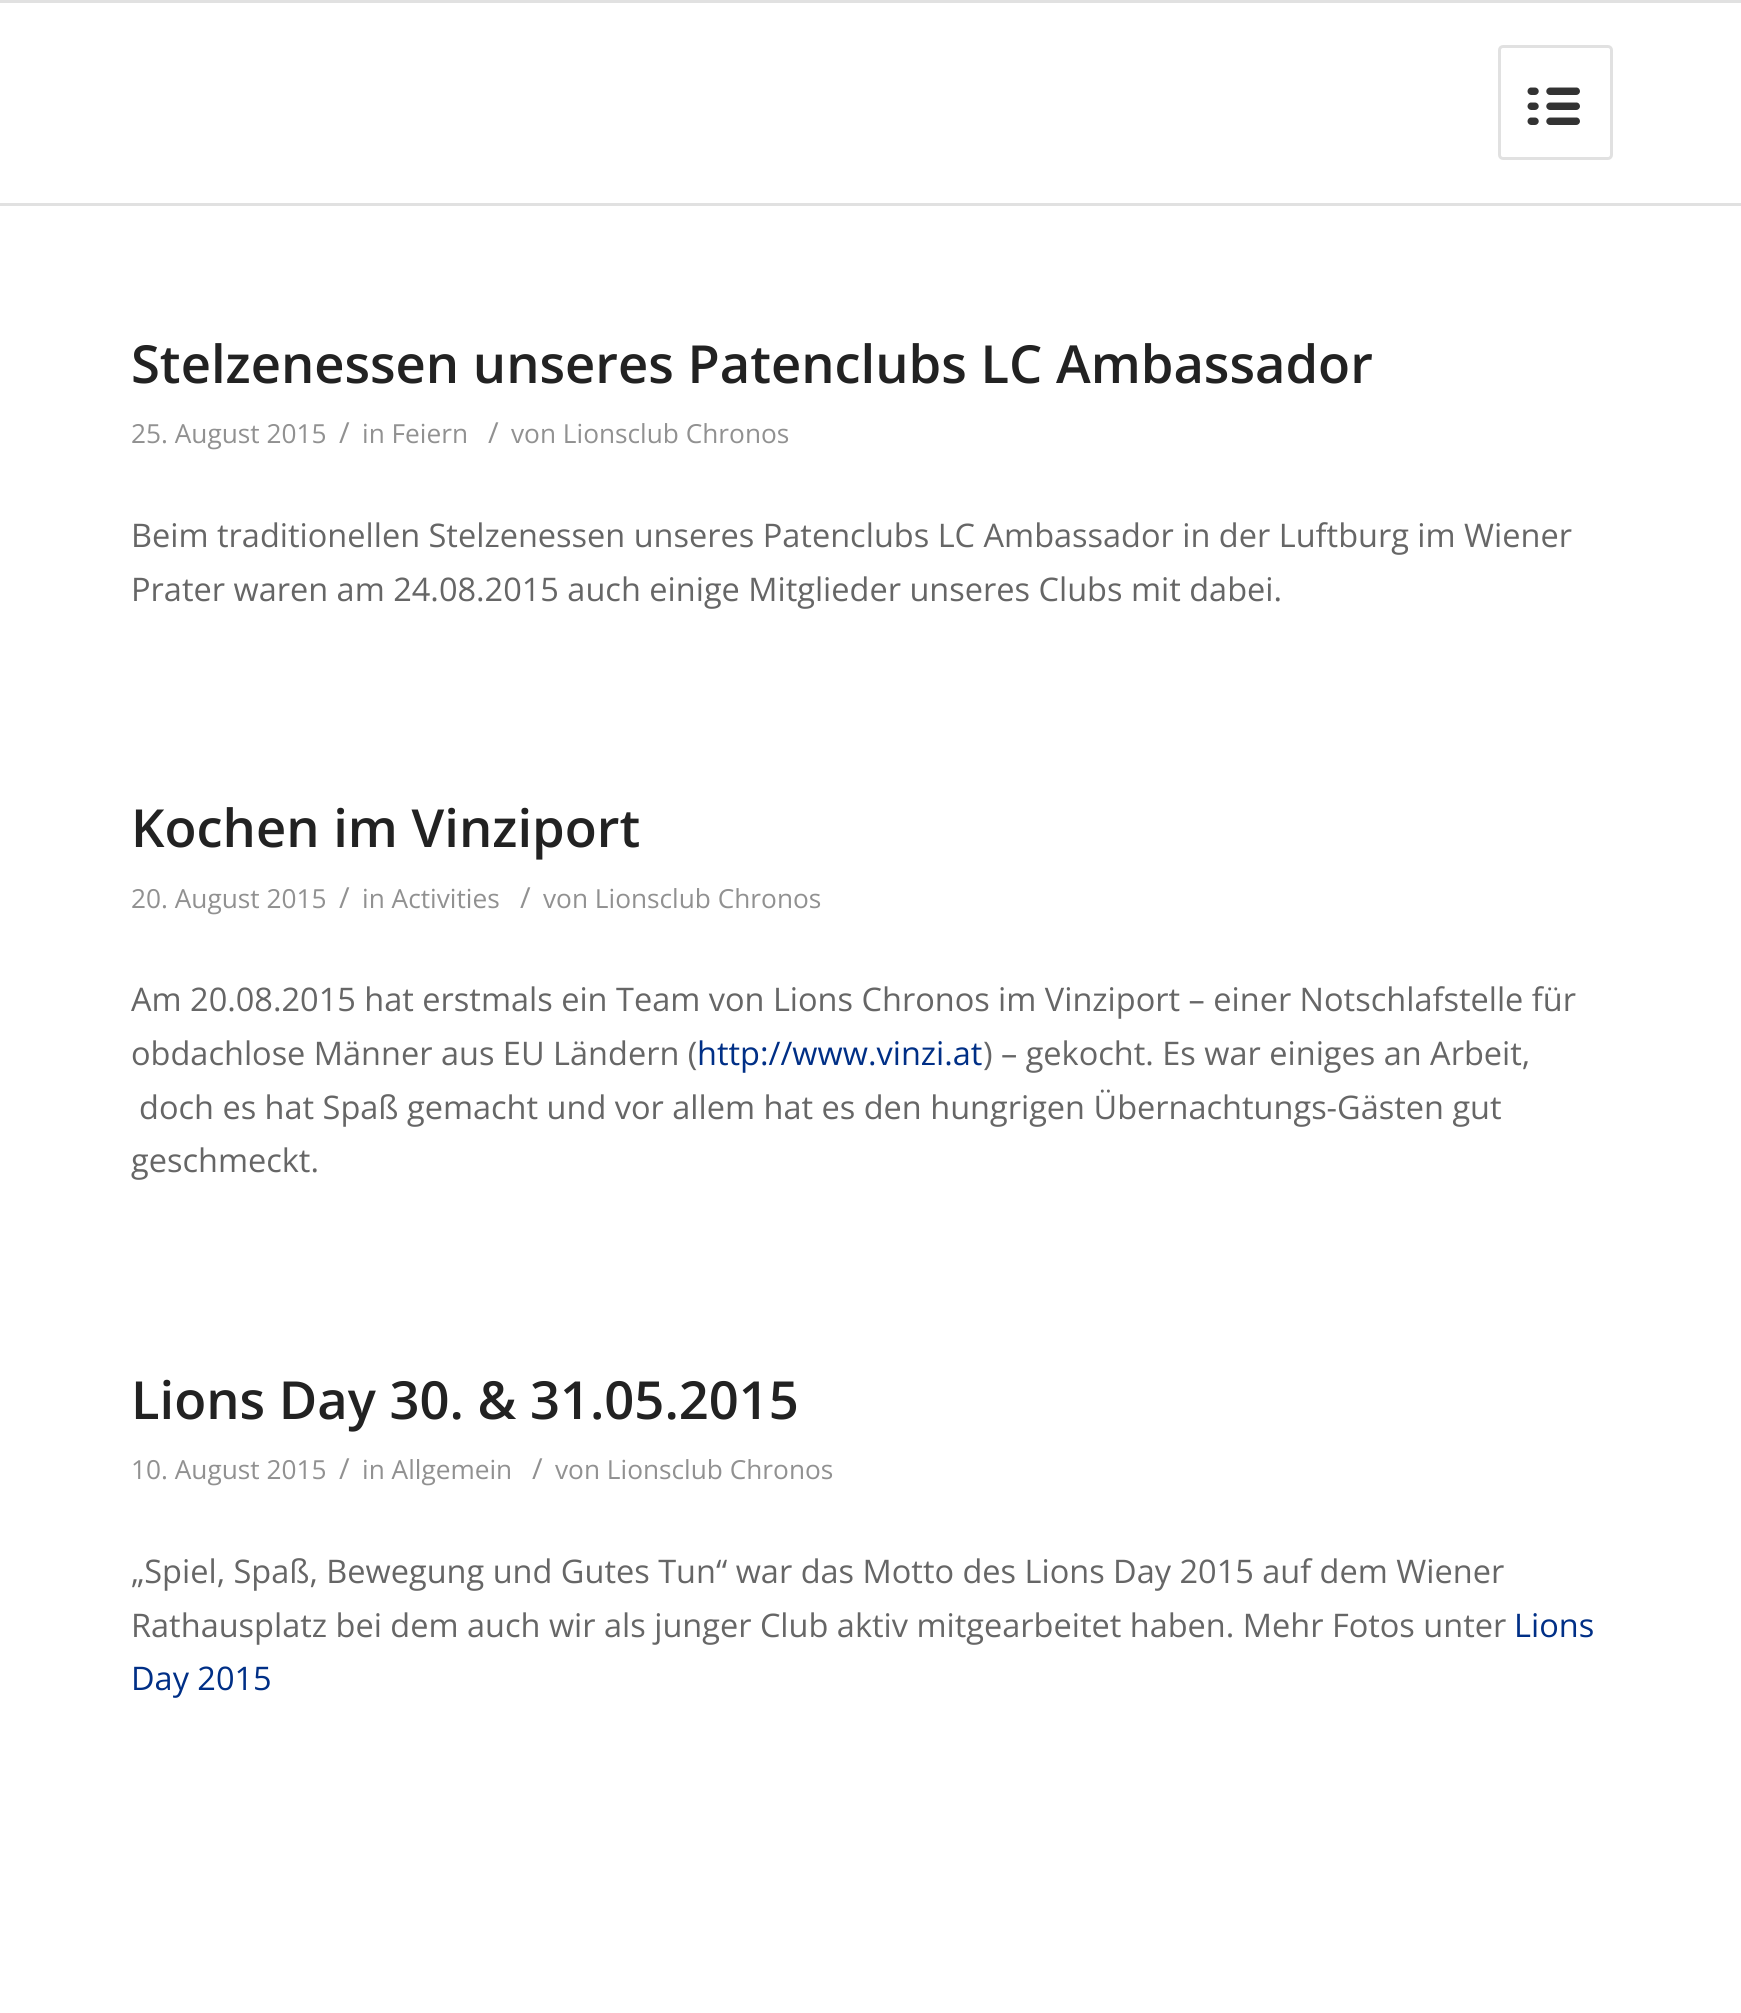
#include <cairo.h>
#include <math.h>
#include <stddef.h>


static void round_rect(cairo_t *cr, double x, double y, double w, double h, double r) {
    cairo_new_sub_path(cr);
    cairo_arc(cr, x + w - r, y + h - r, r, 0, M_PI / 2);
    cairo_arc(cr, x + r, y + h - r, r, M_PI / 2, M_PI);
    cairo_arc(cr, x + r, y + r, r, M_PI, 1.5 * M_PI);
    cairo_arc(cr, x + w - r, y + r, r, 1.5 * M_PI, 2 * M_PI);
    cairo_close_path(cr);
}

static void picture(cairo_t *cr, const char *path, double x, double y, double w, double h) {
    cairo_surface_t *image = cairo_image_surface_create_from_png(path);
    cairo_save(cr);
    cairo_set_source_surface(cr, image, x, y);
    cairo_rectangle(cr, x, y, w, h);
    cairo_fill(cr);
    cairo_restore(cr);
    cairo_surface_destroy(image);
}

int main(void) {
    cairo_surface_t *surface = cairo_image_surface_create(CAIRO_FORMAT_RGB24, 1741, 2013);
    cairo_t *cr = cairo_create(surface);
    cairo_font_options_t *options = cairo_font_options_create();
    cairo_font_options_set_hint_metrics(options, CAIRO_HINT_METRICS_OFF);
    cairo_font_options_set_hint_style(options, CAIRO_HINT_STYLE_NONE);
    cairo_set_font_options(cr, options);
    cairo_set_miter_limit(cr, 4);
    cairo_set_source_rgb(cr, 1, 1, 1);
    cairo_paint(cr);
    cairo_set_source_rgb(cr, 0.882, 0.882, 0.882);
    cairo_rectangle(cr, 0, 0, 1741, 3);
    cairo_fill(cr);
    cairo_rectangle(cr, 0, 203, 1741, 3);
    cairo_fill(cr);
    round_rect(cr, 1499.5, 46.5, 112, 112, 3.5);
    cairo_set_line_width(cr, 3);
    cairo_stroke(cr);
    picture(cr, "img1.png", 1527, 87, 53, 38);
    cairo_select_font_face(cr, "Open Sans SemiBold", CAIRO_FONT_SLANT_NORMAL, CAIRO_FONT_WEIGHT_NORMAL);
    cairo_set_font_size(cr, 52.5);
    cairo_set_source_rgb(cr, 0.133, 0.133, 0.133);
    cairo_move_to(cr, 131, 383);
    cairo_show_text(cr, "Stelzenessen unseres Patenclubs LC Ambassador");
    cairo_select_font_face(cr, "Open Sans", CAIRO_FONT_SLANT_NORMAL, CAIRO_FONT_WEIGHT_NORMAL);
    cairo_set_font_size(cr, 26.25);
    cairo_set_source_rgb(cr, 0.569, 0.569, 0.569);
    cairo_move_to(cr, 131, 443);
    cairo_show_text(cr, "25. August 2015");
    cairo_set_font_size(cr, 29);
    cairo_move_to(cr, 339, 443);
    cairo_show_text(cr, "/");
    cairo_set_font_size(cr, 26.25);
    cairo_move_to(cr, 362, 443);
    cairo_show_text(cr, "in Feiern");
    cairo_set_font_size(cr, 29);
    cairo_move_to(cr, 488, 443);
    cairo_show_text(cr, "/");
    cairo_set_font_size(cr, 26.25);
    cairo_move_to(cr, 511, 443);
    cairo_show_text(cr, "von Lionsclub Chronos");
    cairo_set_font_size(cr, 32.5);
    cairo_set_source_rgb(cr, 0.4, 0.4, 0.4);
    cairo_move_to(cr, 131, 547);
    cairo_show_text(cr, "Beim traditionellen Stelzenessen unseres Patenclubs LC Ambassador in der Luftburg im Wiener");
    cairo_move_to(cr, 131, 601);
    cairo_show_text(cr, "Prater waren am 24.08.2015 auch einige Mitglieder unseres Clubs mit dabei.");
    cairo_select_font_face(cr, "Open Sans SemiBold", CAIRO_FONT_SLANT_NORMAL, CAIRO_FONT_WEIGHT_NORMAL);
    cairo_set_font_size(cr, 52.5);
    cairo_set_source_rgb(cr, 0.133, 0.133, 0.133);
    cairo_move_to(cr, 131, 847);
    cairo_show_text(cr, "Kochen im Vinziport");
    cairo_select_font_face(cr, "Open Sans", CAIRO_FONT_SLANT_NORMAL, CAIRO_FONT_WEIGHT_NORMAL);
    cairo_set_font_size(cr, 26.25);
    cairo_set_source_rgb(cr, 0.569, 0.569, 0.569);
    cairo_move_to(cr, 131, 908);
    cairo_show_text(cr, "20. August 2015");
    cairo_set_font_size(cr, 29);
    cairo_move_to(cr, 339, 908);
    cairo_show_text(cr, "/");
    cairo_set_font_size(cr, 26.25);
    cairo_move_to(cr, 362, 908);
    cairo_show_text(cr, "in Activities");
    cairo_set_font_size(cr, 29);
    cairo_move_to(cr, 520, 908);
    cairo_show_text(cr, "/");
    cairo_set_font_size(cr, 26.25);
    cairo_move_to(cr, 543, 908);
    cairo_show_text(cr, "von Lionsclub Chronos");
    cairo_set_font_size(cr, 32.5);
    cairo_set_source_rgb(cr, 0.4, 0.4, 0.4);
    cairo_move_to(cr, 131, 1011);
    cairo_show_text(cr, "Am 20.08.2015 hat erstmals ein Team von Lions Chronos im Vinziport – einer Notschlafstelle für");
    cairo_move_to(cr, 131, 1065);
    cairo_show_text(cr, "obdachlose Männer aus EU Ländern (");
    cairo_set_source_rgb(cr, 0, 0.184, 0.525);
    cairo_move_to(cr, 697, 1065);
    cairo_show_text(cr, "http://www.vinzi.at");
    cairo_set_source_rgb(cr, 0.4, 0.4, 0.4);
    cairo_move_to(cr, 983, 1065);
    cairo_show_text(cr, ") – gekocht. Es war einiges an Arbeit,");
    cairo_move_to(cr, 139, 1119);
    cairo_show_text(cr, "doch es hat Spaß gemacht und vor allem hat es den hungrigen Übernachtungs-Gästen gut");
    cairo_move_to(cr, 131, 1172);
    cairo_show_text(cr, "geschmeckt.");
    cairo_select_font_face(cr, "Open Sans SemiBold", CAIRO_FONT_SLANT_NORMAL, CAIRO_FONT_WEIGHT_NORMAL);
    cairo_set_font_size(cr, 52.5);
    cairo_set_source_rgb(cr, 0.133, 0.133, 0.133);
    cairo_move_to(cr, 131, 1419);
    cairo_show_text(cr, "Lions Day 30. & 31.05.2015");
    cairo_select_font_face(cr, "Open Sans", CAIRO_FONT_SLANT_NORMAL, CAIRO_FONT_WEIGHT_NORMAL);
    cairo_set_font_size(cr, 26.25);
    cairo_set_source_rgb(cr, 0.569, 0.569, 0.569);
    cairo_move_to(cr, 131, 1479);
    cairo_show_text(cr, "10. August 2015");
    cairo_set_font_size(cr, 29);
    cairo_move_to(cr, 339, 1479);
    cairo_show_text(cr, "/");
    cairo_set_font_size(cr, 26.25);
    cairo_move_to(cr, 362, 1479);
    cairo_show_text(cr, "in Allgemein");
    cairo_set_font_size(cr, 29);
    cairo_move_to(cr, 532, 1479);
    cairo_show_text(cr, "/");
    cairo_set_font_size(cr, 26.25);
    cairo_move_to(cr, 555, 1479);
    cairo_show_text(cr, "von Lionsclub Chronos");
    cairo_set_font_size(cr, 32.5);
    cairo_set_source_rgb(cr, 0.4, 0.4, 0.4);
    cairo_move_to(cr, 131, 1583);
    cairo_show_text(cr, "„Spiel, Spaß, Bewegung und Gutes Tun“ war das Motto des Lions Day 2015 auf dem Wiener");
    cairo_move_to(cr, 131, 1637);
    cairo_show_text(cr, "Rathausplatz bei dem auch wir als junger Club aktiv mitgearbeitet haben. Mehr Fotos unter");
    cairo_set_source_rgb(cr, 0, 0.184, 0.525);
    cairo_move_to(cr, 1514, 1637);
    cairo_show_text(cr, "Lions");
    cairo_move_to(cr, 131, 1690);
    cairo_show_text(cr, "Day 2015");
    cairo_surface_write_to_png(surface, "page.png");
    cairo_font_options_destroy(options);
    cairo_destroy(cr);
    cairo_surface_destroy(surface);
    return 0;
}
